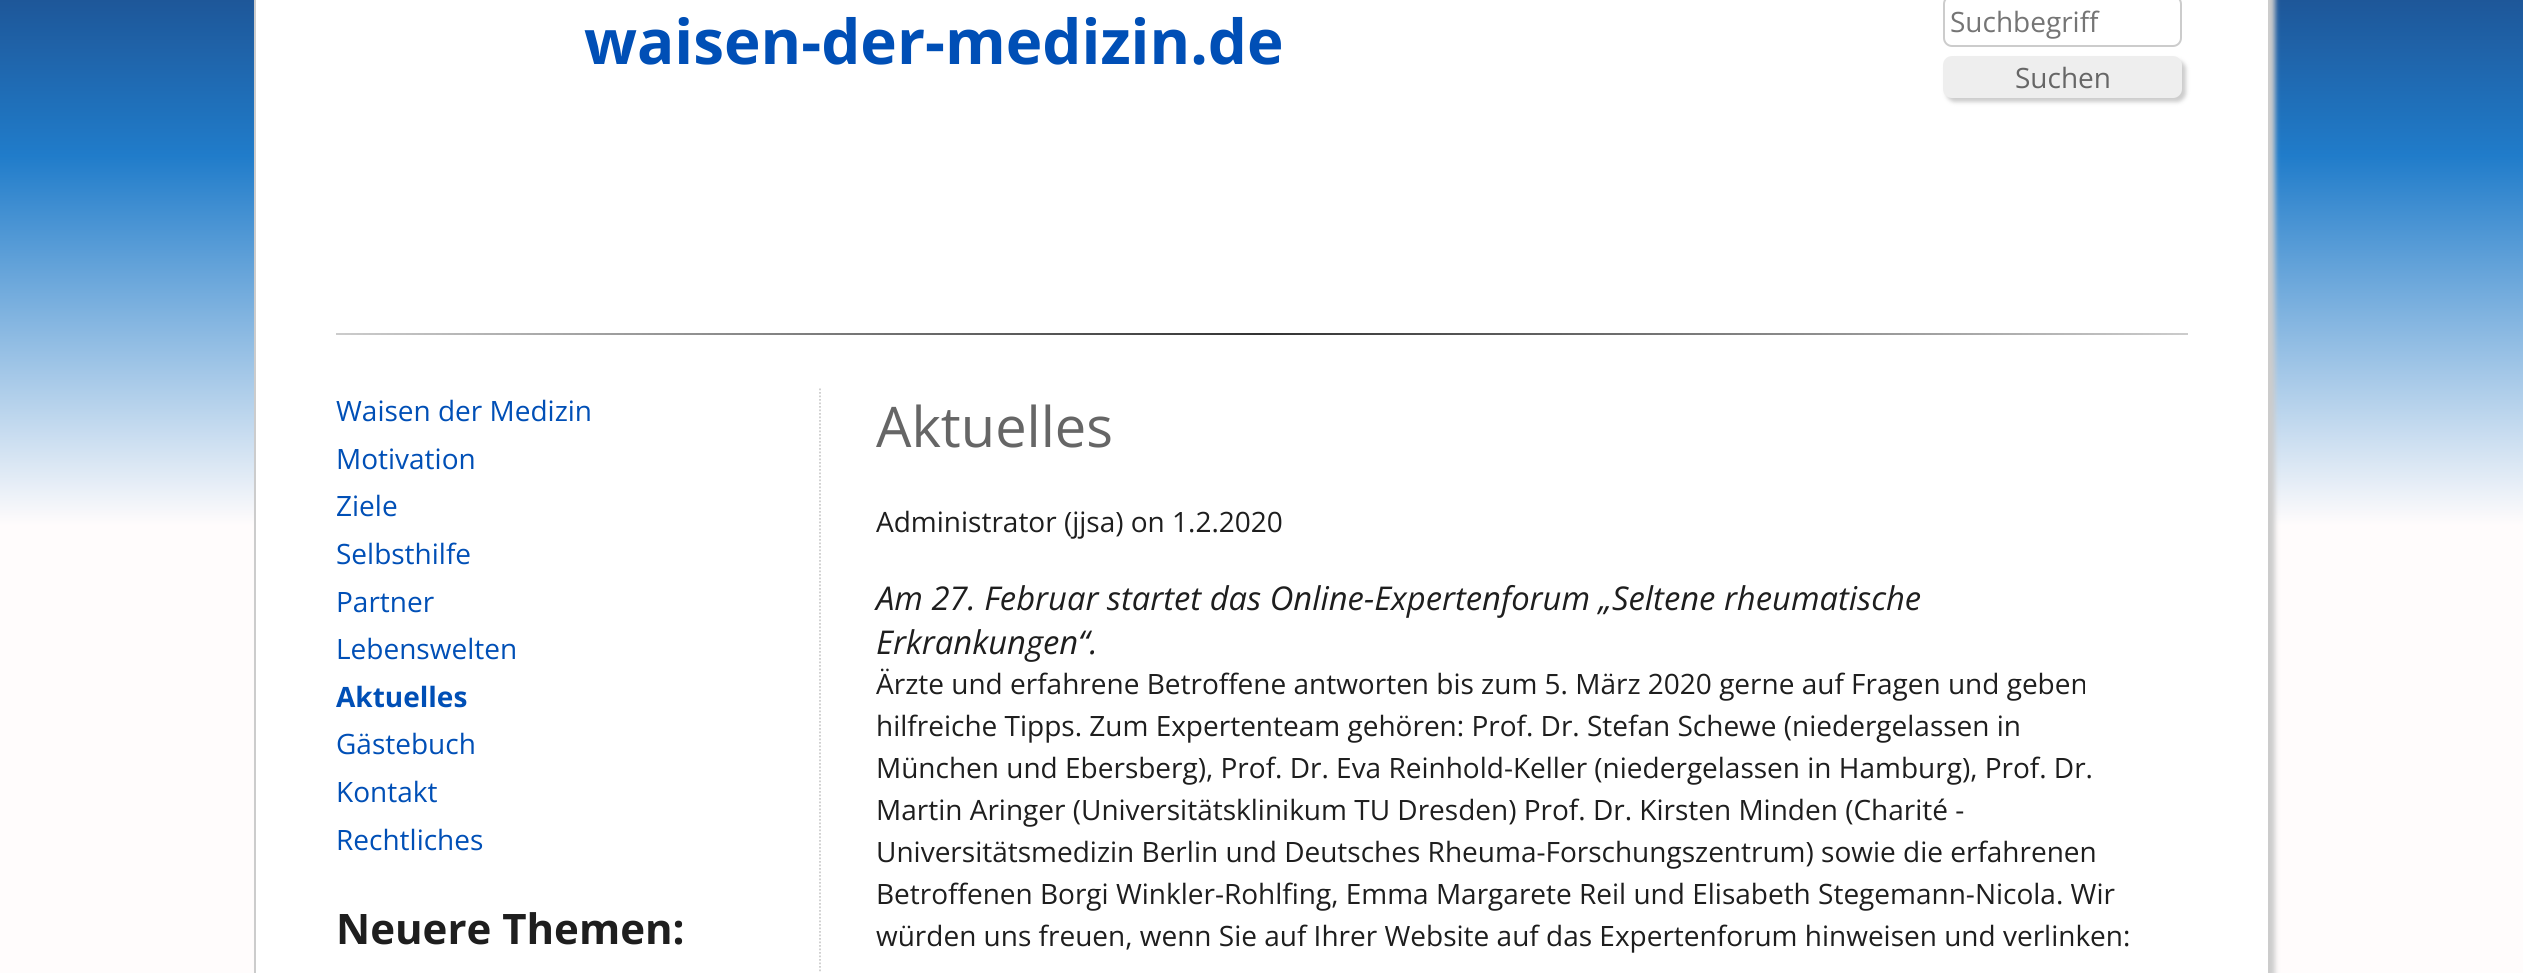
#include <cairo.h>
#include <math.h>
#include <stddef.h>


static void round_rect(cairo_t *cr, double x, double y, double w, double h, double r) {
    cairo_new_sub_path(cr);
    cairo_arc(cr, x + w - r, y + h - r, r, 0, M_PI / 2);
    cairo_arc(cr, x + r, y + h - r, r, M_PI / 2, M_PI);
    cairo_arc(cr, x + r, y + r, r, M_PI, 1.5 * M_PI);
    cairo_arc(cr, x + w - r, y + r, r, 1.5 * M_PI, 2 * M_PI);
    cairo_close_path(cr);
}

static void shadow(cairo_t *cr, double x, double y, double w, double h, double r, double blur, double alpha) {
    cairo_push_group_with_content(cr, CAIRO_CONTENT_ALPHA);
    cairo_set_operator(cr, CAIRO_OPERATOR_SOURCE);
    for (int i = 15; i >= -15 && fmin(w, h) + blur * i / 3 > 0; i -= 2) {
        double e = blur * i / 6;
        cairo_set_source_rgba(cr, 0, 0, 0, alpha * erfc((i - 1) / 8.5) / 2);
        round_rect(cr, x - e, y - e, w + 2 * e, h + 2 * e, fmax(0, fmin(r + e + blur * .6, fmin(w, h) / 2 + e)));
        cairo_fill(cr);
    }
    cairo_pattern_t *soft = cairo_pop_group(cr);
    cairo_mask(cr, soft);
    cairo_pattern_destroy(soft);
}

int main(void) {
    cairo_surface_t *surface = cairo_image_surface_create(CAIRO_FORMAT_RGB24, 2523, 973);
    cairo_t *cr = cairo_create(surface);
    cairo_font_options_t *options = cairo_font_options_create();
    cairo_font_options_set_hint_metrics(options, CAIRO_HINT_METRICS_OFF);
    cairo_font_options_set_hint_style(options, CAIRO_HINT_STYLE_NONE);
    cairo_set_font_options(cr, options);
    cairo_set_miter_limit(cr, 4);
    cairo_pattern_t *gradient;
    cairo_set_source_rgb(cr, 1, 1, 1);
    cairo_paint(cr);
    gradient = cairo_pattern_create_linear(1262, 0, 1262, 973);
    cairo_pattern_add_color_stop_rgba(gradient, 0, 0.118, 0.341, 0.6, 1);
    cairo_pattern_add_color_stop_rgba(gradient, 0.16, 0.125, 0.486, 0.792, 1);
    cairo_pattern_add_color_stop_rgba(gradient, 0.54, 1, 0.988, 0.988, 1);
    cairo_set_source(cr, gradient);
    cairo_pattern_destroy(gradient);
    cairo_rectangle(cr, 0, 0, 2523, 973);
    cairo_fill(cr);
    cairo_set_source_rgb(cr, 0.8, 0.8, 0.8);
    shadow(cr, 259, -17, 2016, 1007, 9, 2.5, 1);
    cairo_set_source_rgb(cr, 1, 1, 1);
    cairo_rectangle(cr, 255, -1, 2014, 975);
    cairo_fill_preserve(cr);
    cairo_set_source_rgb(cr, 0.8, 0.8, 0.8);
    cairo_stroke(cr);
    cairo_select_font_face(cr, "Open Sans", CAIRO_FONT_SLANT_NORMAL, CAIRO_FONT_WEIGHT_BOLD);
    cairo_set_font_size(cr, 61.9);
    cairo_set_source_rgb(cr, 0, 0.31, 0.714);
    cairo_move_to(cr, 584, 64);
    cairo_show_text(cr, "waisen-der-medizin.de");
    round_rect(cr, 1944, -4, 237, 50, 8);
    cairo_set_source_rgb(cr, 0.8, 0.8, 0.8);
    cairo_stroke(cr);
    cairo_select_font_face(cr, "Open Sans", CAIRO_FONT_SLANT_NORMAL, CAIRO_FONT_WEIGHT_NORMAL);
    cairo_set_font_size(cr, 28);
    cairo_set_source_rgb(cr, 0.459, 0.459, 0.459);
    cairo_move_to(cr, 1950, 32);
    cairo_show_text(cr, "Suchbegriff");
    cairo_set_source_rgb(cr, 0.8, 0.8, 0.8);
    shadow(cr, 1946, 60, 240, 42, 9, 2, 1);
    cairo_set_source_rgb(cr, 0.933, 0.933, 0.933);
    round_rect(cr, 1943, 56, 239, 42, 9);
    cairo_fill(cr);
    cairo_set_source_rgb(cr, 0.4, 0.4, 0.4);
    cairo_move_to(cr, 2015, 88);
    cairo_show_text(cr, "Suchen");
    gradient = cairo_pattern_create_linear(336, 333, 2188, 333);
    cairo_pattern_add_color_stop_rgba(gradient, 0, 0.8, 0.8, 0.8, 1);
    cairo_pattern_add_color_stop_rgba(gradient, 0.5, 0.2, 0.2, 0.2, 1);
    cairo_pattern_add_color_stop_rgba(gradient, 1, 0.8, 0.8, 0.8, 1);
    cairo_set_source(cr, gradient);
    cairo_pattern_destroy(gradient);
    cairo_rectangle(cr, 336, 333, 1852, 2);
    cairo_fill(cr);
    cairo_set_source_rgb(cr, 0, 0.31, 0.714);
    cairo_move_to(cr, 336, 421);
    cairo_show_text(cr, "Waisen der Medizin");
    cairo_move_to(cr, 336, 469);
    cairo_show_text(cr, "Motivation");
    cairo_move_to(cr, 336, 516);
    cairo_show_text(cr, "Ziele");
    cairo_move_to(cr, 336, 564);
    cairo_show_text(cr, "Selbsthilfe");
    cairo_move_to(cr, 336, 612);
    cairo_show_text(cr, "Partner");
    cairo_move_to(cr, 336, 659);
    cairo_show_text(cr, "Lebenswelten");
    cairo_select_font_face(cr, "Open Sans", CAIRO_FONT_SLANT_NORMAL, CAIRO_FONT_WEIGHT_BOLD);
    cairo_move_to(cr, 336, 707);
    cairo_show_text(cr, "Aktuelles");
    cairo_select_font_face(cr, "Open Sans", CAIRO_FONT_SLANT_NORMAL, CAIRO_FONT_WEIGHT_NORMAL);
    cairo_move_to(cr, 336, 754);
    cairo_show_text(cr, "Gästebuch");
    cairo_move_to(cr, 336, 802);
    cairo_show_text(cr, "Kontakt");
    cairo_move_to(cr, 336, 850);
    cairo_show_text(cr, "Rechtliches");
    cairo_select_font_face(cr, "Open Sans", CAIRO_FONT_SLANT_NORMAL, CAIRO_FONT_WEIGHT_BOLD);
    cairo_set_font_size(cr, 42);
    cairo_set_source_rgb(cr, 0.118, 0.118, 0.118);
    cairo_move_to(cr, 336, 944);
    cairo_show_text(cr, "Neuere Themen:");
    cairo_new_path(cr);
    cairo_move_to(cr, 820, 388.5);
    cairo_line_to(cr, 820, 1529.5);
    cairo_set_source_rgb(cr, 0.8, 0.8, 0.8);
    cairo_set_line_width(cr, 1.8);
    cairo_set_dash(cr, (double[]){1.75, 1.75}, 2, 0);
    cairo_stroke(cr);
    cairo_select_font_face(cr, "Open Sans", CAIRO_FONT_SLANT_NORMAL, CAIRO_FONT_WEIGHT_NORMAL);
    cairo_set_font_size(cr, 56);
    cairo_set_source_rgb(cr, 0.4, 0.4, 0.4);
    cairo_move_to(cr, 876, 447);
    cairo_show_text(cr, "Aktuelles");
    cairo_set_font_size(cr, 28);
    cairo_set_source_rgb(cr, 0.118, 0.118, 0.118);
    cairo_move_to(cr, 876, 532);
    cairo_show_text(cr, "Administrator (jjsa) on 1.2.2020");
    cairo_select_font_face(cr, "Open Sans", CAIRO_FONT_SLANT_ITALIC, CAIRO_FONT_WEIGHT_NORMAL);
    cairo_set_font_size(cr, 32.75);
    cairo_move_to(cr, 876, 610);
    cairo_show_text(cr, "Am 27. Februar startet das Online-Expertenforum „Seltene rheumatische");
    cairo_move_to(cr, 876, 654);
    cairo_show_text(cr, "Erkrankungen“.");
    cairo_select_font_face(cr, "Open Sans", CAIRO_FONT_SLANT_NORMAL, CAIRO_FONT_WEIGHT_NORMAL);
    cairo_set_font_size(cr, 28);
    cairo_move_to(cr, 876, 694);
    cairo_show_text(cr, "Ärzte und erfahrene Betroffene antworten bis zum 5. März 2020 gerne auf Fragen und geben");
    cairo_move_to(cr, 876, 736);
    cairo_show_text(cr, "hilfreiche Tipps. Zum Expertenteam gehören: Prof. Dr. Stefan Schewe (niedergelassen in");
    cairo_move_to(cr, 876, 778);
    cairo_show_text(cr, "München und Ebersberg), Prof. Dr. Eva Reinhold-Keller (niedergelassen in Hamburg), Prof. Dr.");
    cairo_move_to(cr, 876, 820);
    cairo_show_text(cr, "Martin Aringer (Universitätsklinikum TU Dresden) Prof. Dr. Kirsten Minden (Charité -");
    cairo_move_to(cr, 876, 862);
    cairo_show_text(cr, "Universitätsmedizin Berlin und Deutsches Rheuma-Forschungszentrum) sowie die erfahrenen");
    cairo_move_to(cr, 876, 904);
    cairo_show_text(cr, "Betroffenen Borgi Winkler-Rohlfing, Emma Margarete Reil und Elisabeth Stegemann-Nicola. Wir");
    cairo_move_to(cr, 876, 946);
    cairo_show_text(cr, "würden uns freuen, wenn Sie auf Ihrer Website auf das Expertenforum hinweisen und verlinken:");
    cairo_surface_write_to_png(surface, "page.png");
    cairo_font_options_destroy(options);
    cairo_destroy(cr);
    cairo_surface_destroy(surface);
    return 0;
}
